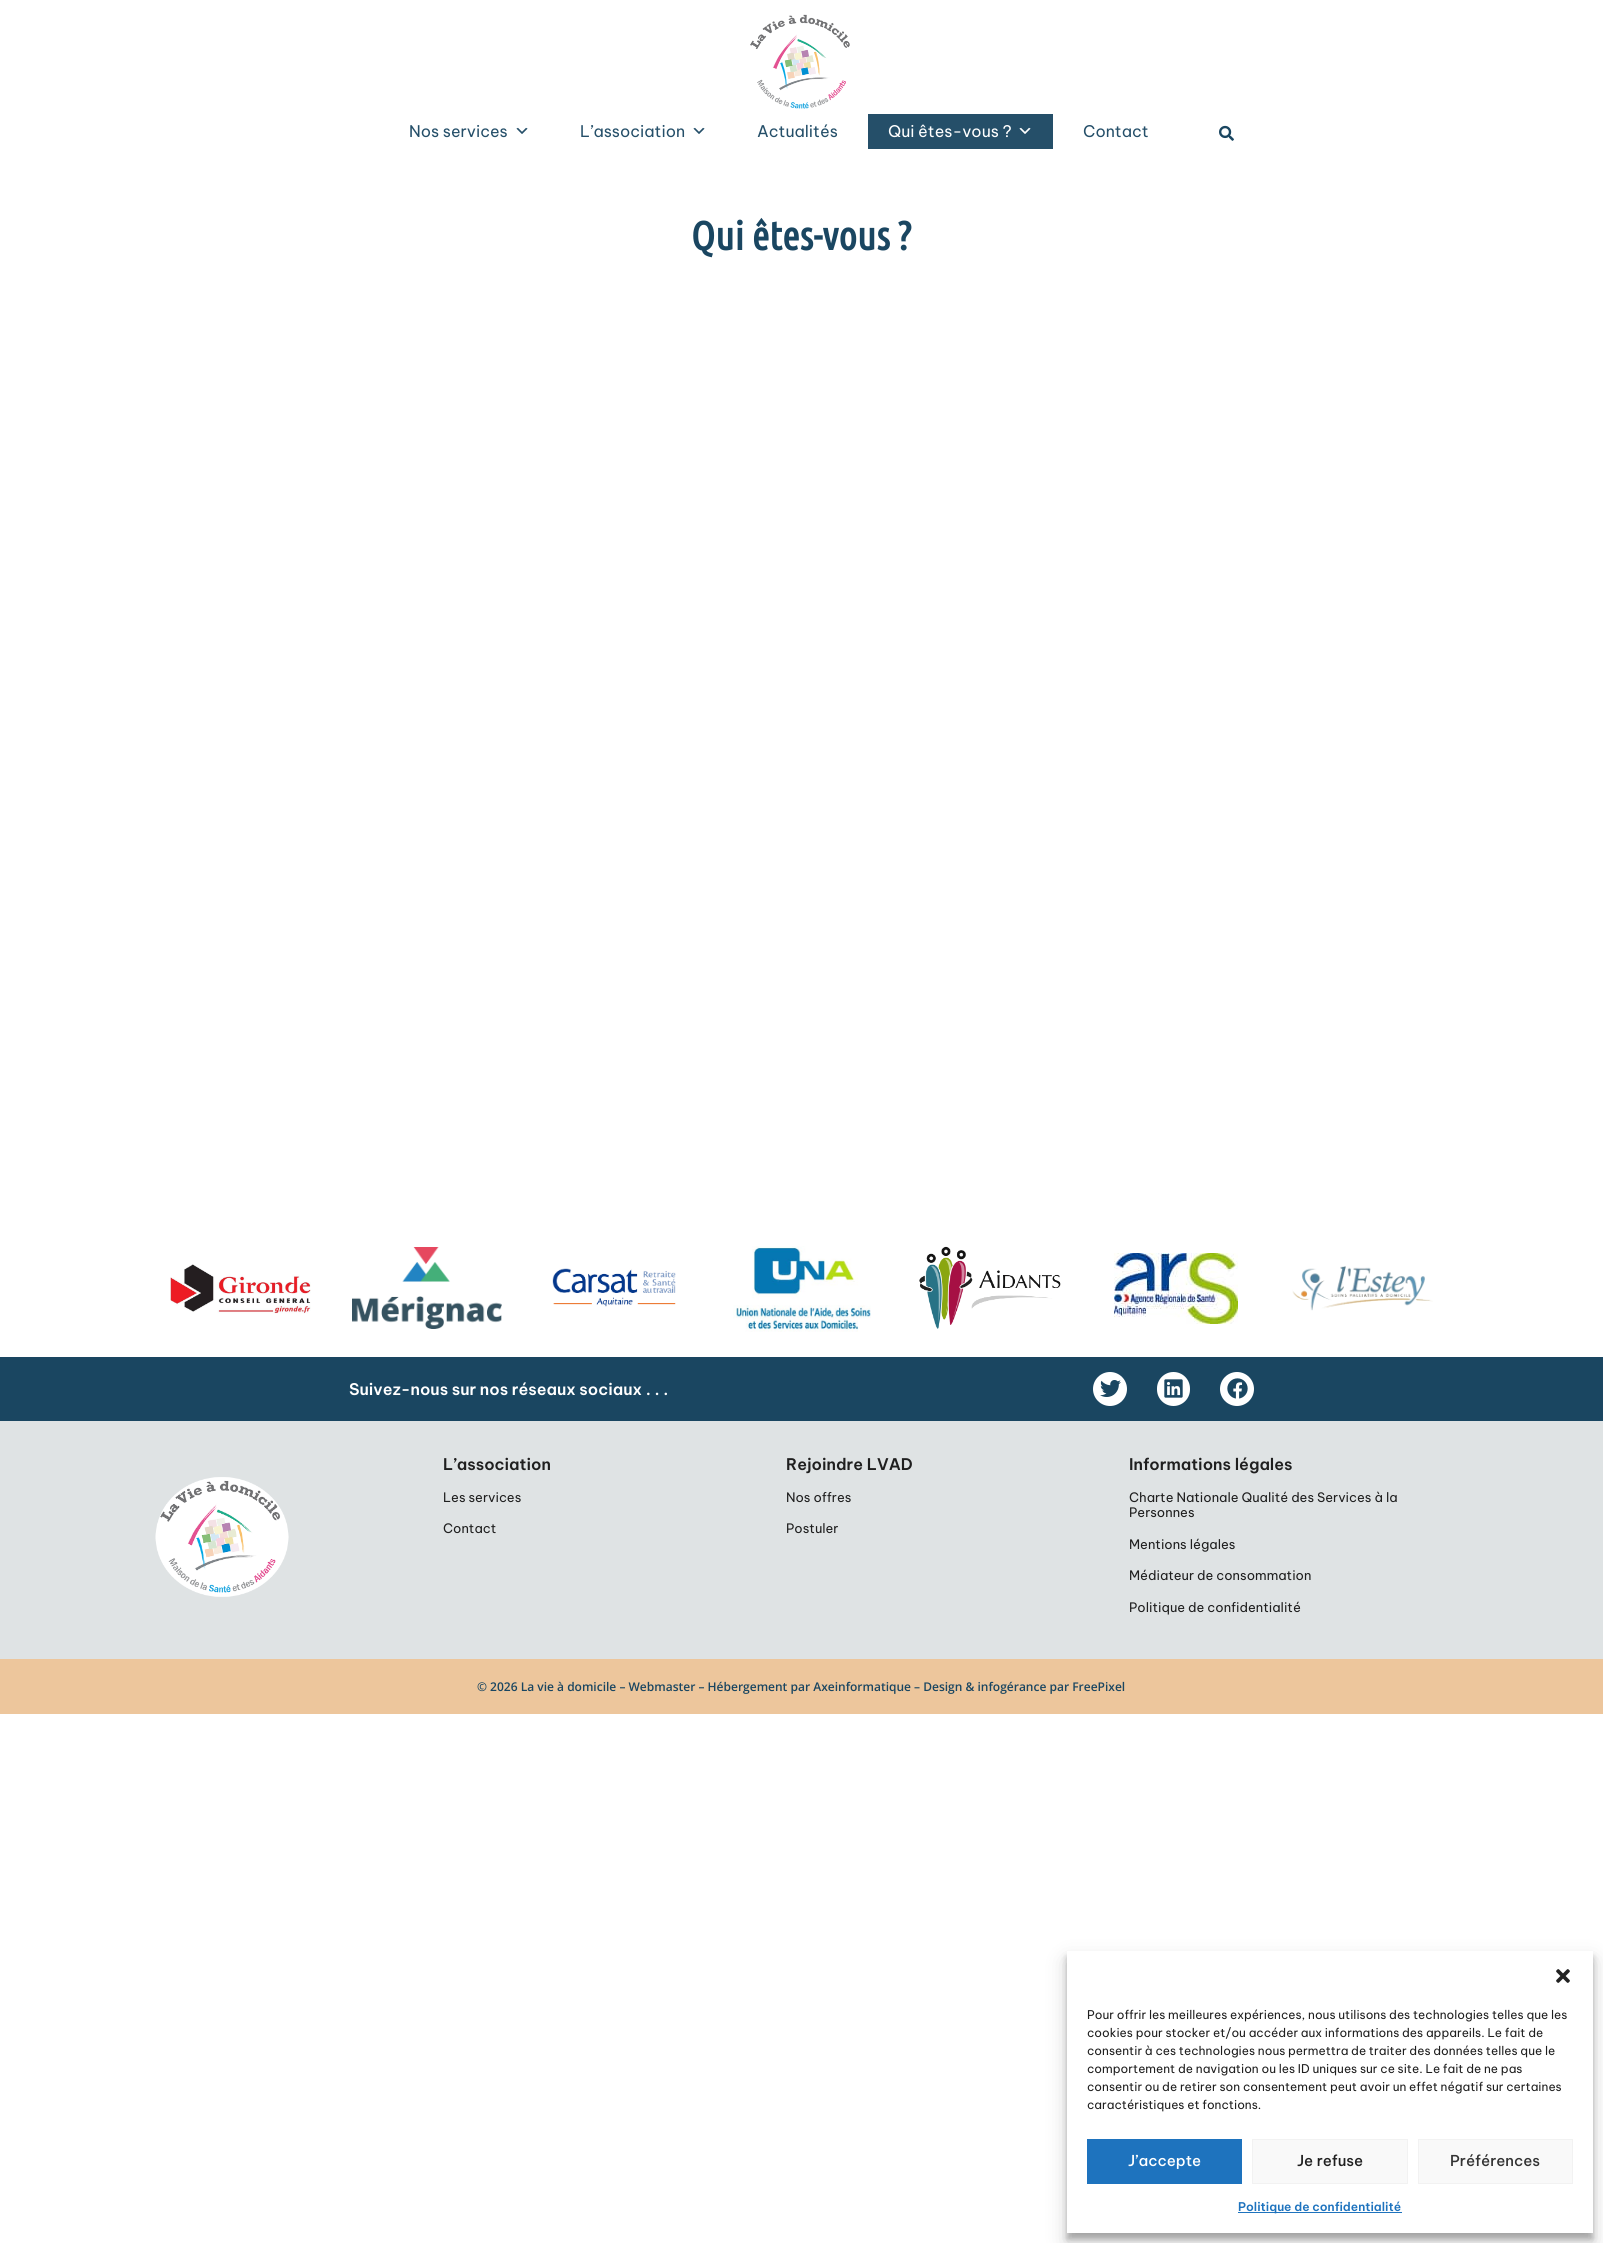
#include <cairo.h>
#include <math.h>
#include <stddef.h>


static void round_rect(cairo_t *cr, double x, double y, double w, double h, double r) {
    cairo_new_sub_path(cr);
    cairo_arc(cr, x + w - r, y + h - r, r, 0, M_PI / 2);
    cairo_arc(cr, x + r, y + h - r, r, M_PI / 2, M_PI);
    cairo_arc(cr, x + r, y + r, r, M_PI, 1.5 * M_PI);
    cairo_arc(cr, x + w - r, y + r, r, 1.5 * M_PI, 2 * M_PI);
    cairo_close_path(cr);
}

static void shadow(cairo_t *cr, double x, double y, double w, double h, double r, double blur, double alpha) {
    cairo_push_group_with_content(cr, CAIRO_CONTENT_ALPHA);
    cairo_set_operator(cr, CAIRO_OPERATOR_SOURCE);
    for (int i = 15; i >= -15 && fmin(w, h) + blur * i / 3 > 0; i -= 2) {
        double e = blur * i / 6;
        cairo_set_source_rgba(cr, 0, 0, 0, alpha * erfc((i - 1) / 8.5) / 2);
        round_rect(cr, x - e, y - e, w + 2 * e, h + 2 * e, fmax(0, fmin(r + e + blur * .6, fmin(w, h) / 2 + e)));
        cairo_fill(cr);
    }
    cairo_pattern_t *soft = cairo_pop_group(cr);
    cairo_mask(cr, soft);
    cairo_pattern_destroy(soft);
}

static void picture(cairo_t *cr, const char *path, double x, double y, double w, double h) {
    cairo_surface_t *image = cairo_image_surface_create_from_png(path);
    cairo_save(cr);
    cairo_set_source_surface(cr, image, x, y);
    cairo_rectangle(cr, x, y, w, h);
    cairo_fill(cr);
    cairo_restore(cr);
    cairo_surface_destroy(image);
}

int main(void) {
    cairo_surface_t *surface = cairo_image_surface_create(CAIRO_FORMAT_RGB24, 1603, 2243);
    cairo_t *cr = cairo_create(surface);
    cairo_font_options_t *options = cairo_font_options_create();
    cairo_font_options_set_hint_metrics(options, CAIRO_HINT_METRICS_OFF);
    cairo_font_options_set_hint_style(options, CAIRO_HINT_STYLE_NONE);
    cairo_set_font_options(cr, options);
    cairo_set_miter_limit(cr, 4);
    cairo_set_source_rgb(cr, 1, 1, 1);
    cairo_paint(cr);
    picture(cr, "img1.png", 750, 14, 100, 95);
    cairo_select_font_face(cr, "Be Vietnam Pro", CAIRO_FONT_SLANT_NORMAL, CAIRO_FONT_WEIGHT_NORMAL);
    cairo_set_font_size(cr, 16);
    cairo_set_source_rgb(cr, 0.145, 0.31, 0.412);
    cairo_move_to(cr, 409, 137);
    cairo_show_text(cr, "Nos services");
    picture(cr, "img2.png", 516, 127, 12, 7);
    cairo_move_to(cr, 580, 137);
    cairo_show_text(cr, "L’association");
    picture(cr, "img2.png", 693, 127, 12, 7);
    cairo_move_to(cr, 757, 137);
    cairo_show_text(cr, "Actualités");
    cairo_rectangle(cr, 868, 114, 185, 35);
    cairo_fill(cr);
    cairo_set_source_rgb(cr, 1, 1, 1);
    cairo_move_to(cr, 888, 137);
    cairo_show_text(cr, "Qui êtes-vous ?");
    picture(cr, "img3.png", 1019, 127, 12, 7);
    cairo_set_source_rgb(cr, 0.145, 0.31, 0.412);
    cairo_move_to(cr, 1083, 137);
    cairo_show_text(cr, "Contact");
    picture(cr, "img4.png", 1219, 125, 15, 16);
    cairo_select_font_face(cr, "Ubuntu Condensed", CAIRO_FONT_SLANT_NORMAL, CAIRO_FONT_WEIGHT_BOLD);
    cairo_set_font_size(cr, 40);
    cairo_set_source_rgb(cr, 0.102, 0.275, 0.38);
    cairo_move_to(cr, 691, 250);
    cairo_show_text(cr, "Qui êtes-vous ?");
    picture(cr, "img5.png", 170, 1264, 141, 50);
    picture(cr, "img6.png", 352, 1247, 150, 82);
    picture(cr, "img7.png", 552, 1268, 124, 39);
    picture(cr, "img8.png", 733, 1246, 138, 86);
    picture(cr, "img9.png", 919, 1246, 142, 83);
    picture(cr, "img10.png", 1114, 1253, 124, 71);
    picture(cr, "img11.png", 1292, 1266, 141, 45);
    cairo_rectangle(cr, 0, 1357, 1603, 64);
    cairo_fill(cr);
    cairo_select_font_face(cr, "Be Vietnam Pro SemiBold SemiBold", CAIRO_FONT_SLANT_NORMAL, CAIRO_FONT_WEIGHT_NORMAL);
    cairo_set_font_size(cr, 16);
    cairo_set_source_rgb(cr, 1, 1, 1);
    cairo_move_to(cr, 349, 1395);
    cairo_show_text(cr, "Suivez-nous sur nos réseaux sociaux . . .");
    cairo_new_path(cr);
    cairo_arc(cr, 1110, 1389, 17, 0, 2 * M_PI);
    cairo_fill(cr);
    picture(cr, "img12.png", 1100, 1380, 21, 17);
    round_rect(cr, 1157, 1372, 33, 34, 16.5);
    cairo_fill(cr);
    picture(cr, "img13.png", 1164, 1379, 19, 19);
    cairo_arc(cr, 1237, 1389, 17, 0, 2 * M_PI);
    cairo_fill(cr);
    picture(cr, "img14.png", 1227, 1378, 21, 21);
    cairo_set_source_rgb(cr, 0.875, 0.89, 0.894);
    cairo_rectangle(cr, 0, 1421, 1603, 238);
    cairo_fill(cr);
    picture(cr, "img15.png", 155, 1477, 134, 120);
    cairo_set_source_rgb(cr, 0.122, 0.122, 0.122);
    cairo_move_to(cr, 443, 1470);
    cairo_show_text(cr, "L’association");
    cairo_select_font_face(cr, "Be Vietnam Pro", CAIRO_FONT_SLANT_NORMAL, CAIRO_FONT_WEIGHT_NORMAL);
    cairo_set_font_size(cr, 13);
    cairo_move_to(cr, 443, 1502);
    cairo_show_text(cr, "Les services");
    cairo_move_to(cr, 443, 1533);
    cairo_show_text(cr, "Contact");
    cairo_select_font_face(cr, "Be Vietnam Pro SemiBold SemiBold", CAIRO_FONT_SLANT_NORMAL, CAIRO_FONT_WEIGHT_NORMAL);
    cairo_set_font_size(cr, 16);
    cairo_move_to(cr, 786, 1470);
    cairo_show_text(cr, "Rejoindre LVAD");
    cairo_select_font_face(cr, "Be Vietnam Pro", CAIRO_FONT_SLANT_NORMAL, CAIRO_FONT_WEIGHT_NORMAL);
    cairo_set_font_size(cr, 13);
    cairo_move_to(cr, 786, 1502);
    cairo_show_text(cr, "Nos offres");
    cairo_move_to(cr, 786, 1533);
    cairo_show_text(cr, "Postuler");
    cairo_select_font_face(cr, "Be Vietnam Pro SemiBold SemiBold", CAIRO_FONT_SLANT_NORMAL, CAIRO_FONT_WEIGHT_NORMAL);
    cairo_set_font_size(cr, 16);
    cairo_move_to(cr, 1129, 1470);
    cairo_show_text(cr, "Informations légales");
    cairo_select_font_face(cr, "Be Vietnam Pro", CAIRO_FONT_SLANT_NORMAL, CAIRO_FONT_WEIGHT_NORMAL);
    cairo_set_font_size(cr, 13);
    cairo_move_to(cr, 1129, 1502);
    cairo_show_text(cr, "Charte Nationale Qualité des Services à la");
    cairo_move_to(cr, 1129, 1517);
    cairo_show_text(cr, "Personnes");
    cairo_move_to(cr, 1129, 1549);
    cairo_show_text(cr, "Mentions légales");
    cairo_move_to(cr, 1129, 1580);
    cairo_show_text(cr, "Médiateur de consommation");
    cairo_move_to(cr, 1129, 1612);
    cairo_show_text(cr, "Politique de confidentialité");
    cairo_set_source_rgb(cr, 0.929, 0.776, 0.612);
    cairo_rectangle(cr, 0, 1659, 1603, 55);
    cairo_fill(cr);
    cairo_select_font_face(cr, "Open Sans SemiBold", CAIRO_FONT_SLANT_NORMAL, CAIRO_FONT_WEIGHT_NORMAL);
    cairo_set_font_size(cr, 12);
    cairo_set_source_rgb(cr, 0.102, 0.275, 0.38);
    cairo_move_to(cr, 477, 1691);
    cairo_show_text(cr, "© 2026 La vie à domicile – Webmaster – Hébergement par Axeinformatique – Design & infogérance par FreePixel");
    cairo_save(cr);
    cairo_set_fill_rule(cr, CAIRO_FILL_RULE_EVEN_ODD);
    cairo_new_path(cr);
    cairo_move_to(cr, 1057, 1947);
    cairo_line_to(cr, 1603, 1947);
    cairo_line_to(cr, 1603, 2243);
    cairo_line_to(cr, 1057, 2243);
    cairo_close_path(cr);
    cairo_move_to(cr, 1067, 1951);
    cairo_line_to(cr, 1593, 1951);
    cairo_line_to(cr, 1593, 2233);
    cairo_line_to(cr, 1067, 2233);
    cairo_close_path(cr);
    cairo_clip(cr);
    cairo_set_source_rgb(cr, 0, 0, 0);
    shadow(cr, 1067, 1957, 526, 282, 0, 3, 0.23);
    cairo_restore(cr);
    cairo_save(cr);
    cairo_set_fill_rule(cr, CAIRO_FILL_RULE_EVEN_ODD);
    cairo_new_path(cr);
    cairo_move_to(cr, 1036, 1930);
    cairo_line_to(cr, 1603, 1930);
    cairo_line_to(cr, 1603, 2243);
    cairo_line_to(cr, 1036, 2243);
    cairo_close_path(cr);
    cairo_move_to(cr, 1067, 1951);
    cairo_line_to(cr, 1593, 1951);
    cairo_line_to(cr, 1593, 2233);
    cairo_line_to(cr, 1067, 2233);
    cairo_close_path(cr);
    cairo_clip(cr);
    cairo_set_source_rgb(cr, 0, 0, 0);
    shadow(cr, 1067, 1961, 526, 282, 0, 10, 0.19);
    cairo_restore(cr);
    picture(cr, "img16.png", 1556, 1969, 14, 14);
    cairo_select_font_face(cr, "Be Vietnam Pro", CAIRO_FONT_SLANT_NORMAL, CAIRO_FONT_WEIGHT_NORMAL);
    cairo_set_source_rgb(cr, 0.122, 0.122, 0.122);
    cairo_move_to(cr, 1087, 2019);
    cairo_show_text(cr, "Pour offrir les meilleures expériences, nous utilisons des technologies telles que les");
    cairo_move_to(cr, 1087, 2037);
    cairo_show_text(cr, "cookies pour stocker et/ou accéder aux informations des appareils. Le fait de");
    cairo_move_to(cr, 1087, 2055);
    cairo_show_text(cr, "consentir à ces technologies nous permettra de traiter des données telles que le");
    cairo_move_to(cr, 1087, 2073);
    cairo_show_text(cr, "comportement de navigation ou les ID uniques sur ce site. Le fait de ne pas");
    cairo_move_to(cr, 1087, 2091);
    cairo_show_text(cr, "consentir ou de retirer son consentement peut avoir un effet négatif sur certaines");
    cairo_move_to(cr, 1087, 2109);
    cairo_show_text(cr, "caractéristiques et fonctions.");
    cairo_set_source_rgb(cr, 0.118, 0.451, 0.745);
    cairo_rectangle(cr, 1087, 2139, 155, 45);
    cairo_fill(cr);
    cairo_select_font_face(cr, "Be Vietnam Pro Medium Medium", CAIRO_FONT_SLANT_NORMAL, CAIRO_FONT_WEIGHT_NORMAL);
    cairo_set_font_size(cr, 15);
    cairo_set_source_rgb(cr, 1, 1, 1);
    cairo_move_to(cr, 1128, 2166);
    cairo_show_text(cr, "J’accepte");
    cairo_set_source_rgb(cr, 0.976, 0.976, 0.976);
    cairo_rectangle(cr, 1252.5, 2139.5, 155, 44);
    cairo_fill_preserve(cr);
    cairo_set_source_rgb(cr, 0.949, 0.949, 0.949);
    cairo_set_line_width(cr, 1);
    cairo_stroke(cr);
    cairo_set_source_rgb(cr, 0.122, 0.122, 0.122);
    cairo_move_to(cr, 1297, 2166);
    cairo_show_text(cr, "Je refuse");
    cairo_set_source_rgb(cr, 0.976, 0.976, 0.976);
    cairo_rectangle(cr, 1418.5, 2139.5, 154, 44);
    cairo_fill_preserve(cr);
    cairo_set_source_rgb(cr, 0.949, 0.949, 0.949);
    cairo_stroke(cr);
    cairo_set_source_rgb(cr, 0.2, 0.2, 0.2);
    cairo_move_to(cr, 1450, 2166);
    cairo_show_text(cr, "Préférences");
    cairo_set_source_rgb(cr, 0.118, 0.451, 0.745);
    cairo_rectangle(cr, 1238, 2212, 164, 1);
    cairo_fill(cr);
    cairo_select_font_face(cr, "Be Vietnam Pro SemiBold SemiBold", CAIRO_FONT_SLANT_NORMAL, CAIRO_FONT_WEIGHT_NORMAL);
    cairo_set_font_size(cr, 12);
    cairo_move_to(cr, 1238, 2211);
    cairo_show_text(cr, "Politique de confidentialité");
    cairo_surface_write_to_png(surface, "page.png");
    cairo_font_options_destroy(options);
    cairo_destroy(cr);
    cairo_surface_destroy(surface);
    return 0;
}
